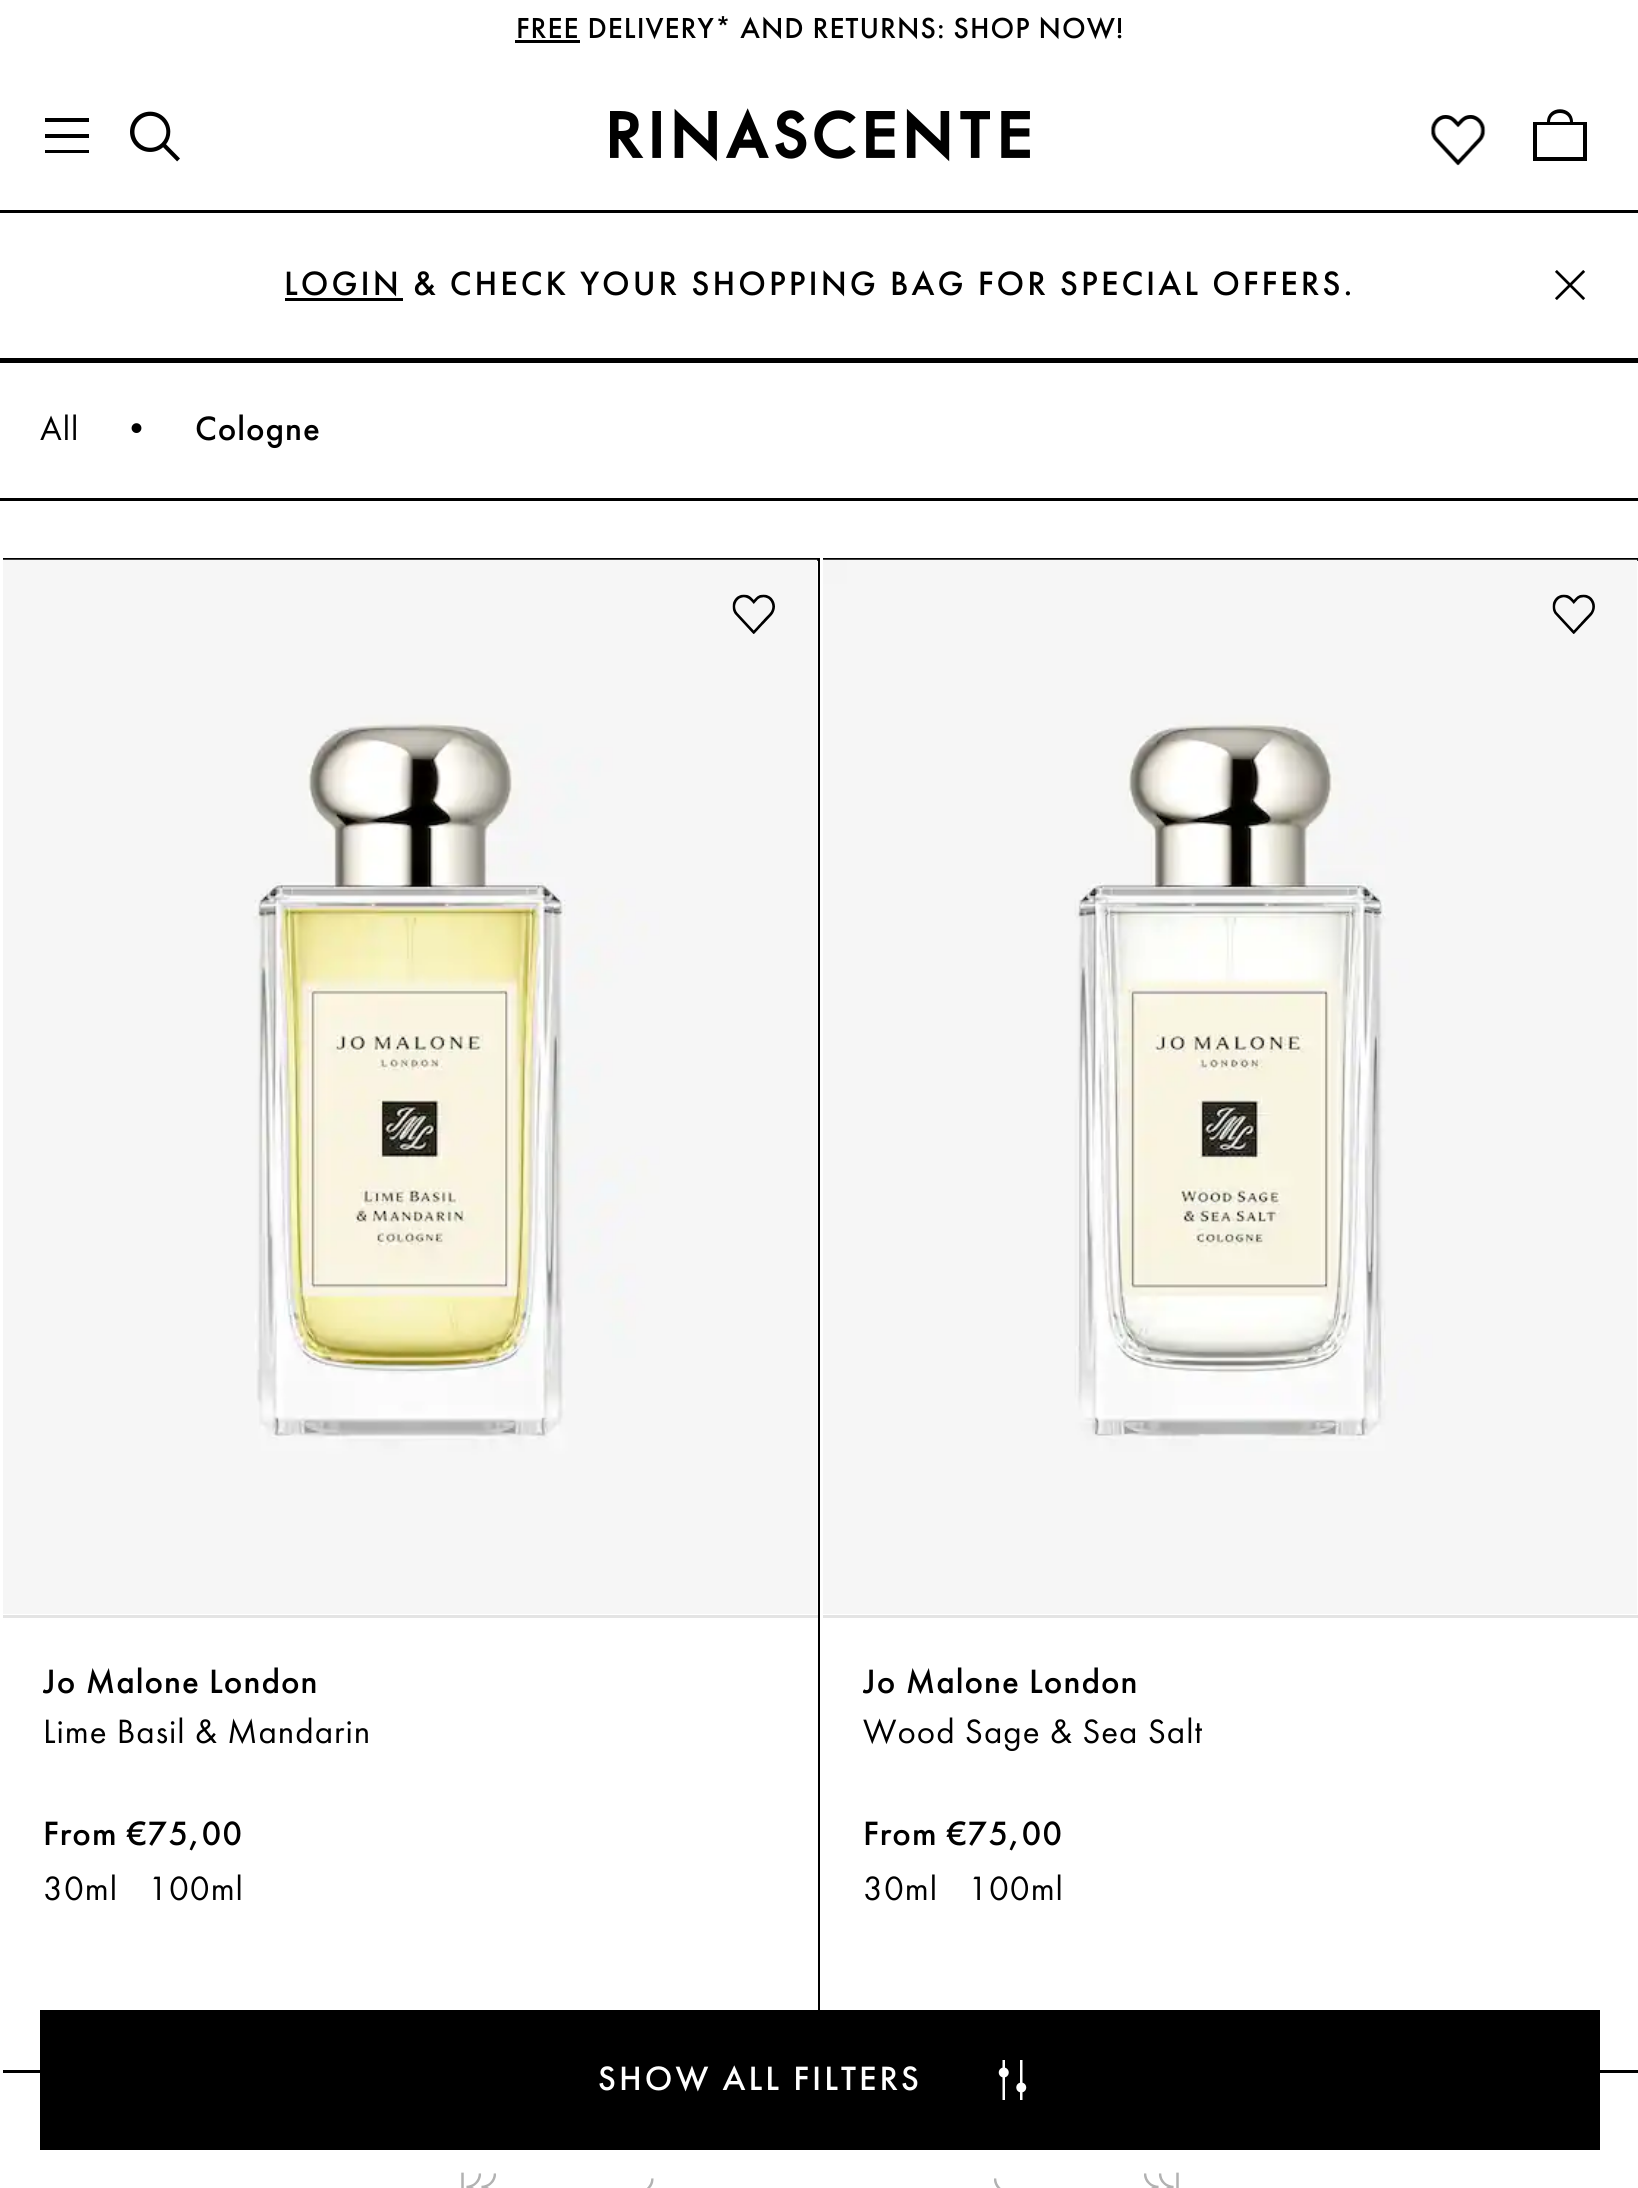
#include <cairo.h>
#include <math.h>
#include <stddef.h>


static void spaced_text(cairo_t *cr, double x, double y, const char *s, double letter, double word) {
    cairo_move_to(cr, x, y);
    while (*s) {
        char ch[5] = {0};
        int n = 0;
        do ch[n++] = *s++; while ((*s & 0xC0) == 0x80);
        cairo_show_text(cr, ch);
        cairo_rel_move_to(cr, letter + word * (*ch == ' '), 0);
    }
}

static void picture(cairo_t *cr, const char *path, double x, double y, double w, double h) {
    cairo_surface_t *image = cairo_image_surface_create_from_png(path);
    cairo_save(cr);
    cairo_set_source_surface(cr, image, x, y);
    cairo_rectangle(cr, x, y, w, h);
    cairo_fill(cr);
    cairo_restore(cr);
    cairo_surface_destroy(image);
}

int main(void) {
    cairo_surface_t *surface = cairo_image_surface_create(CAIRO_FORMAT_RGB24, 1638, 2188);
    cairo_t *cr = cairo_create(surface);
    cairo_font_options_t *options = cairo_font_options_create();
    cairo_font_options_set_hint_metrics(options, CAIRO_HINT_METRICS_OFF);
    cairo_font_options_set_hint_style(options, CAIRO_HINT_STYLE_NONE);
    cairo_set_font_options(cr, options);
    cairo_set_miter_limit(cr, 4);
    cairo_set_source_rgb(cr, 1, 1, 1);
    cairo_paint(cr);
    cairo_select_font_face(cr, "Futura", CAIRO_FONT_SLANT_NORMAL, CAIRO_FONT_WEIGHT_NORMAL);
    cairo_set_font_size(cr, 30);
    cairo_set_source_rgb(cr, 0, 0, 0);
    spaced_text(cr, 516, 38, "FREE DELIVERY* AND RETURNS: SHOP NOW!", 1, 0);
    cairo_rectangle(cr, 515, 40, 65, 3);
    cairo_fill(cr);
    cairo_rectangle(cr, 45, 118, 44, 4);
    cairo_fill(cr);
    cairo_rectangle(cr, 45, 134, 44, 4);
    cairo_fill(cr);
    cairo_rectangle(cr, 45, 150, 44, 3);
    cairo_fill(cr);
    picture(cr, "img1.png", 130, 111, 50, 51);
    picture(cr, "img2.png", 610, 108, 420, 54);
    picture(cr, "img3.png", 1430, 115, 56, 51);
    cairo_set_fill_rule(cr, CAIRO_FILL_RULE_EVEN_ODD);
    cairo_new_path(cr);
    cairo_move_to(cr, 1537, 157);
    cairo_line_to(cr, 1583, 157);
    cairo_line_to(cr, 1583, 125);
    cairo_line_to(cr, 1537, 125);
    cairo_close_path(cr);
    cairo_move_to(cr, 1560, 113);
    cairo_curve_to(cr, 1566, 113, 1570, 117, 1570, 122);
    cairo_line_to(cr, 1550, 122);
    cairo_curve_to(cr, 1550, 117, 1554, 113, 1560, 113);
    cairo_close_path(cr);
    cairo_move_to(cr, 1573, 122);
    cairo_curve_to(cr, 1573, 105, 1547, 105, 1547, 122);
    cairo_line_to(cr, 1533, 122);
    cairo_line_to(cr, 1533, 161);
    cairo_line_to(cr, 1587, 161);
    cairo_line_to(cr, 1587, 122);
    cairo_close_path(cr);
    cairo_fill(cr);
    cairo_rectangle(cr, 0, 210, 1638, 3);
    cairo_fill(cr);
    cairo_set_font_size(cr, 35);
    spaced_text(cr, 284, 295, "LOGIN & CHECK YOUR SHOPPING BAG FOR SPECIAL OFFERS.", 3, 0);
    cairo_rectangle(cr, 285, 298, 118, 3);
    cairo_fill(cr);
    picture(cr, "img4.png", 1555, 270, 31, 30);
    cairo_rectangle(cr, 0, 498, 1638, 3);
    cairo_fill(cr);
    cairo_rectangle(cr, 0, 358, 1638, 5);
    cairo_fill(cr);
    cairo_select_font_face(cr, "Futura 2", CAIRO_FONT_SLANT_NORMAL, CAIRO_FONT_WEIGHT_NORMAL);
    spaced_text(cr, 40, 440, "All", 1, 0);
    spaced_text(cr, 119, 440, "•", 1, 0);
    cairo_select_font_face(cr, "Futura", CAIRO_FONT_SLANT_NORMAL, CAIRO_FONT_WEIGHT_NORMAL);
    spaced_text(cr, 195, 440, "Cologne", 1, 0);
    cairo_rectangle(cr, 0, 558, 1638, 3);
    cairo_fill(cr);
    cairo_rectangle(cr, 818, 558, 2, 1452);
    cairo_fill(cr);
    cairo_rectangle(cr, 0, 2070, 40, 3);
    cairo_fill(cr);
    cairo_set_source_rgb(cr, 1, 1, 1);
    cairo_rectangle(cr, 0, 558, 3, 1515);
    cairo_fill(cr);
    picture(cr, "img5.png", 3, 559, 815, 1055);
    picture(cr, "img6.png", 732, 594, 43, 40);
    cairo_set_source_rgb(cr, 0.894, 0.894, 0.894);
    cairo_rectangle(cr, 3, 1615, 815, 3);
    cairo_fill(cr);
    cairo_save(cr);
    cairo_set_fill_rule(cr, CAIRO_FILL_RULE_WINDING);
    cairo_rectangle(cr, 43, 1658, 735, 50);
    cairo_clip(cr);
    cairo_set_source_rgb(cr, 0, 0, 0);
    spaced_text(cr, 43, 1693, "Jo Malone London", 1, 0);
    cairo_restore(cr);
    cairo_select_font_face(cr, "Futura 2", CAIRO_FONT_SLANT_NORMAL, CAIRO_FONT_WEIGHT_NORMAL);
    cairo_set_source_rgb(cr, 0, 0, 0);
    spaced_text(cr, 43, 1743, "Lime Basil & Mandarin", 1, 0);
    cairo_select_font_face(cr, "Futura", CAIRO_FONT_SLANT_NORMAL, CAIRO_FONT_WEIGHT_NORMAL);
    spaced_text(cr, 43, 1845, "From €75,00", 1, 0);
    cairo_select_font_face(cr, "Futura 2", CAIRO_FONT_SLANT_NORMAL, CAIRO_FONT_WEIGHT_NORMAL);
    spaced_text(cr, 43, 1900, "30ml", 1, 0);
    spaced_text(cr, 148, 1900, "100ml", 1, 0);
    cairo_rectangle(cr, 1600, 2070, 38, 3);
    cairo_fill(cr);
    cairo_set_source_rgb(cr, 1, 1, 1);
    cairo_rectangle(cr, 820, 558, 3, 3);
    cairo_fill(cr);
    picture(cr, "img7.png", 823, 559, 815, 1055);
    picture(cr, "img8.png", 1552, 594, 43, 40);
    cairo_set_source_rgb(cr, 0.894, 0.894, 0.894);
    cairo_rectangle(cr, 823, 1615, 815, 3);
    cairo_fill(cr);
    cairo_save(cr);
    cairo_set_fill_rule(cr, CAIRO_FILL_RULE_WINDING);
    cairo_rectangle(cr, 863, 1658, 735, 50);
    cairo_clip(cr);
    cairo_select_font_face(cr, "Futura", CAIRO_FONT_SLANT_NORMAL, CAIRO_FONT_WEIGHT_NORMAL);
    cairo_set_source_rgb(cr, 0, 0, 0);
    spaced_text(cr, 863, 1693, "Jo Malone London", 1, 0);
    cairo_restore(cr);
    cairo_set_source_rgb(cr, 0, 0, 0);
    spaced_text(cr, 863, 1743, "Wood Sage & Sea Salt", 1, 0);
    cairo_select_font_face(cr, "Futura", CAIRO_FONT_SLANT_NORMAL, CAIRO_FONT_WEIGHT_NORMAL);
    spaced_text(cr, 863, 1845, "From €75,00", 1, 0);
    cairo_select_font_face(cr, "Futura 2", CAIRO_FONT_SLANT_NORMAL, CAIRO_FONT_WEIGHT_NORMAL);
    spaced_text(cr, 863, 1900, "30ml", 1, 0);
    spaced_text(cr, 968, 1900, "100ml", 1, 0);
    cairo_rectangle(cr, 40, 2010, 1560, 140);
    cairo_fill(cr);
    cairo_select_font_face(cr, "Futura", CAIRO_FONT_SLANT_NORMAL, CAIRO_FONT_WEIGHT_NORMAL);
    cairo_set_source_rgb(cr, 1, 1, 1);
    spaced_text(cr, 598, 2090, "SHOW ALL FILTERS", 3, 0);
    picture(cr, "img9.png", 998, 2060, 29, 40);
    picture(cr, "img10.png", 461, 2172, 35, 16);
    picture(cr, "img11.png", 647, 2178, 7, 10);
    picture(cr, "img12.png", 994, 2178, 7, 10);
    picture(cr, "img13.png", 1144, 2172, 35, 16);
    cairo_surface_write_to_png(surface, "page.png");
    cairo_font_options_destroy(options);
    cairo_destroy(cr);
    cairo_surface_destroy(surface);
    return 0;
}
